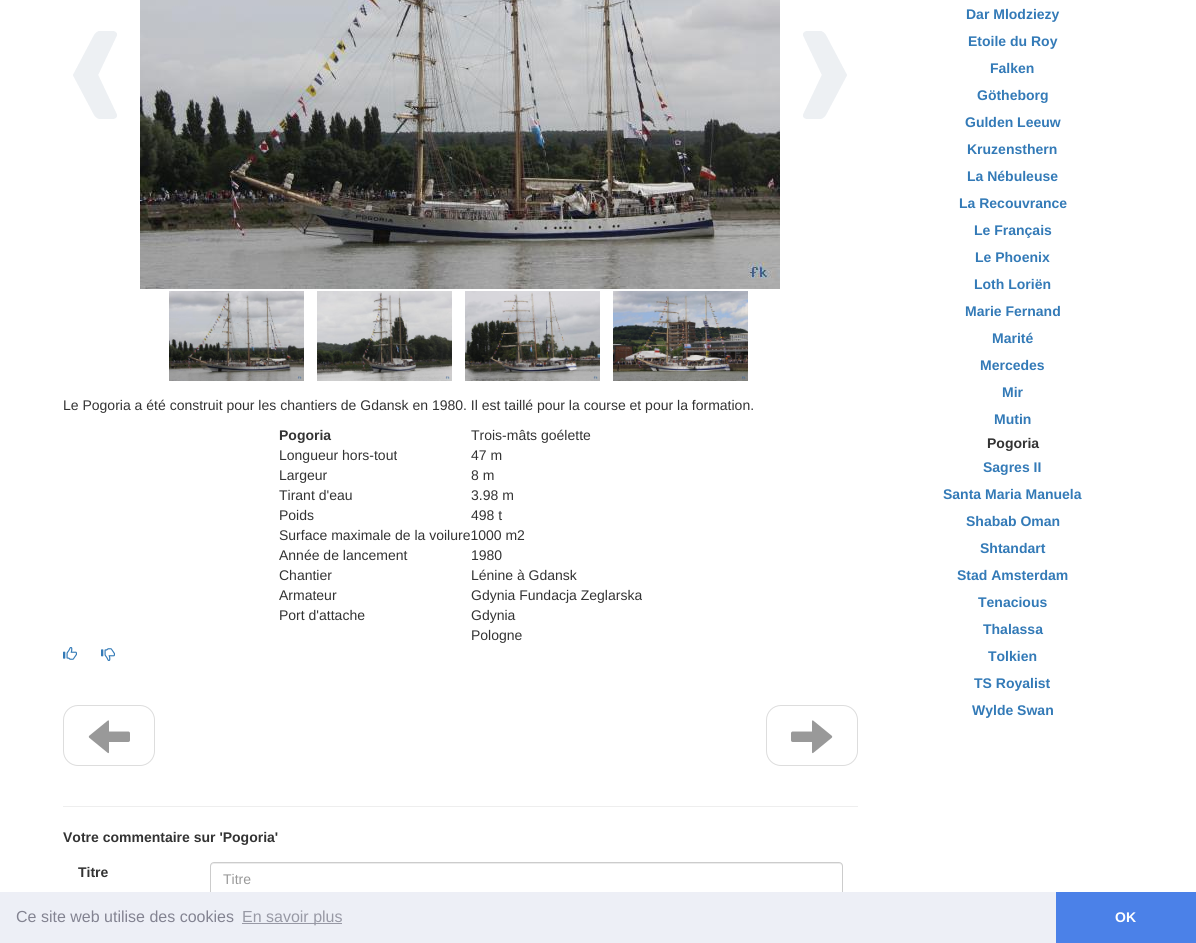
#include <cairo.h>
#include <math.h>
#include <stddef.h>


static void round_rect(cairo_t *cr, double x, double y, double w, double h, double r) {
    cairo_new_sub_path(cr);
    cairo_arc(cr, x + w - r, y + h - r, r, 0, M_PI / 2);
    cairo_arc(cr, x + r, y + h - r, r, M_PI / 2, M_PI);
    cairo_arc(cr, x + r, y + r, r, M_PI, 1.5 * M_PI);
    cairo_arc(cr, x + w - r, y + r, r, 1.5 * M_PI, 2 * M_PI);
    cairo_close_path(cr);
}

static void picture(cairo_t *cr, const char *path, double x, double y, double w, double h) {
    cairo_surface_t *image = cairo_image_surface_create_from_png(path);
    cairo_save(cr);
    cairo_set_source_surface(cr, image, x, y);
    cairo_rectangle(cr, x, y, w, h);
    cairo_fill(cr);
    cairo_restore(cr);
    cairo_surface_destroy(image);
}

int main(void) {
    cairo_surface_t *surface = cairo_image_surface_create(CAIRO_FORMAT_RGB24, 1196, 943);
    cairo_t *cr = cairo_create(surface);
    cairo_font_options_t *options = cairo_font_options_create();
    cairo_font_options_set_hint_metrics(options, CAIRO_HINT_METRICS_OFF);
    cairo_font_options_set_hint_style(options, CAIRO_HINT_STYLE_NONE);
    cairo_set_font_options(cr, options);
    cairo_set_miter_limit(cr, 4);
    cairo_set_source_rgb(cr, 1, 1, 1);
    cairo_paint(cr);
    picture(cr, "img1.png", 73, 31, 44, 88);
    picture(cr, "img2.png", 140, 0, 640, 289);
    picture(cr, "img3.png", 803, 31, 44, 88);
    picture(cr, "img4.png", 169, 291, 135, 90);
    picture(cr, "img5.png", 317, 291, 135, 90);
    picture(cr, "img6.png", 465, 291, 135, 90);
    picture(cr, "img7.png", 613, 291, 135, 90);
    cairo_select_font_face(cr, "Liberation Sans", CAIRO_FONT_SLANT_NORMAL, CAIRO_FONT_WEIGHT_NORMAL);
    cairo_set_font_size(cr, 14);
    cairo_set_source_rgb(cr, 0.2, 0.2, 0.2);
    cairo_move_to(cr, 63, 410);
    cairo_show_text(cr, "Le Pogoria a été construit pour les chantiers de Gdansk en 1980. Il est taillé pour la course et pour la formation.");
    cairo_select_font_face(cr, "Liberation Sans", CAIRO_FONT_SLANT_NORMAL, CAIRO_FONT_WEIGHT_BOLD);
    cairo_move_to(cr, 279, 440);
    cairo_show_text(cr, "Pogoria");
    cairo_select_font_face(cr, "Liberation Sans", CAIRO_FONT_SLANT_NORMAL, CAIRO_FONT_WEIGHT_NORMAL);
    cairo_move_to(cr, 471, 440);
    cairo_show_text(cr, "Trois-mâts goélette");
    cairo_move_to(cr, 279, 460);
    cairo_show_text(cr, "Longueur hors-tout");
    cairo_move_to(cr, 471, 460);
    cairo_show_text(cr, "47 m");
    cairo_move_to(cr, 279, 480);
    cairo_show_text(cr, "Largeur");
    cairo_move_to(cr, 471, 480);
    cairo_show_text(cr, "8 m");
    cairo_move_to(cr, 279, 500);
    cairo_show_text(cr, "Tirant d'eau");
    cairo_move_to(cr, 471, 500);
    cairo_show_text(cr, "3.98 m");
    cairo_move_to(cr, 279, 520);
    cairo_show_text(cr, "Poids");
    cairo_move_to(cr, 471, 520);
    cairo_show_text(cr, "498 t");
    cairo_move_to(cr, 279, 540);
    cairo_show_text(cr, "Surface maximale de la voilure1000 m2");
    cairo_move_to(cr, 279, 560);
    cairo_show_text(cr, "Année de lancement");
    cairo_move_to(cr, 471, 560);
    cairo_show_text(cr, "1980");
    cairo_move_to(cr, 279, 580);
    cairo_show_text(cr, "Chantier");
    cairo_move_to(cr, 471, 580);
    cairo_show_text(cr, "Lénine à Gdansk");
    cairo_move_to(cr, 279, 600);
    cairo_show_text(cr, "Armateur");
    cairo_move_to(cr, 471, 600);
    cairo_show_text(cr, "Gdynia Fundacja Zeglarska");
    cairo_move_to(cr, 279, 620);
    cairo_show_text(cr, "Port d'attache");
    cairo_move_to(cr, 471, 620);
    cairo_show_text(cr, "Gdynia");
    cairo_move_to(cr, 471, 640);
    cairo_show_text(cr, "Pologne");
    picture(cr, "img8.png", 63, 647, 14, 13);
    picture(cr, "img9.png", 101, 648, 14, 13);
    round_rect(cr, 63.5, 705.5, 91, 60, 14.5);
    cairo_set_source_rgb(cr, 0.867, 0.867, 0.867);
    cairo_set_line_width(cr, 1);
    cairo_stroke(cr);
    picture(cr, "img10.png", 88, 720, 42, 34);
    round_rect(cr, 766.5, 705.5, 91, 60, 14.5);
    cairo_stroke(cr);
    picture(cr, "img11.png", 791, 720, 42, 34);
    cairo_set_source_rgb(cr, 0.933, 0.933, 0.933);
    cairo_rectangle(cr, 63, 806, 795, 1);
    cairo_fill(cr);
    cairo_select_font_face(cr, "Liberation Sans", CAIRO_FONT_SLANT_NORMAL, CAIRO_FONT_WEIGHT_BOLD);
    cairo_set_source_rgb(cr, 0.2, 0.2, 0.2);
    cairo_move_to(cr, 63, 842);
    cairo_show_text(cr, "Votre commentaire sur 'Pogoria'");
    cairo_move_to(cr, 78, 877);
    cairo_show_text(cr, "Titre");
    cairo_set_source_rgb(cr, 0.925, 0.925, 0.925);
    cairo_new_path(cr);
    cairo_move_to(cr, 214, 864);
    cairo_line_to(cr, 839, 864);
    cairo_curve_to(cr, 841, 864, 842, 865, 842, 867);
    cairo_line_to(cr, 842, 866);
    cairo_curve_to(cr, 842, 864, 841, 863, 839, 863);
    cairo_line_to(cr, 214, 863);
    cairo_curve_to(cr, 212, 863, 211, 864, 211, 866);
    cairo_line_to(cr, 211, 867);
    cairo_curve_to(cr, 211, 865, 212, 864, 214, 864);
    cairo_close_path(cr);
    cairo_fill(cr);
    round_rect(cr, 210.5, 862.5, 632, 33, 3.5);
    cairo_set_source_rgb(cr, 0.8, 0.8, 0.8);
    cairo_stroke(cr);
    cairo_select_font_face(cr, "Liberation Sans", CAIRO_FONT_SLANT_NORMAL, CAIRO_FONT_WEIGHT_NORMAL);
    cairo_set_source_rgb(cr, 0.6, 0.6, 0.6);
    cairo_move_to(cr, 223, 884);
    cairo_show_text(cr, "Titre");
    cairo_select_font_face(cr, "Liberation Sans", CAIRO_FONT_SLANT_NORMAL, CAIRO_FONT_WEIGHT_BOLD);
    cairo_set_source_rgb(cr, 0.2, 0.478, 0.718);
    cairo_move_to(cr, 966, 19);
    cairo_show_text(cr, "Dar Mlodziezy");
    cairo_move_to(cr, 968, 46);
    cairo_show_text(cr, "Etoile du Roy");
    cairo_move_to(cr, 990, 73);
    cairo_show_text(cr, "Falken");
    cairo_move_to(cr, 977, 100);
    cairo_show_text(cr, "Götheborg");
    cairo_move_to(cr, 965, 127);
    cairo_show_text(cr, "Gulden Leeuw");
    cairo_move_to(cr, 967, 154);
    cairo_show_text(cr, "Kruzensthern");
    cairo_move_to(cr, 967, 181);
    cairo_show_text(cr, "La Nébuleuse");
    cairo_move_to(cr, 959, 208);
    cairo_show_text(cr, "La Recouvrance");
    cairo_move_to(cr, 974, 235);
    cairo_show_text(cr, "Le Français");
    cairo_move_to(cr, 975, 262);
    cairo_show_text(cr, "Le Phoenix");
    cairo_move_to(cr, 974, 289);
    cairo_show_text(cr, "Loth Loriën");
    cairo_move_to(cr, 965, 316);
    cairo_show_text(cr, "Marie Fernand");
    cairo_move_to(cr, 992, 343);
    cairo_show_text(cr, "Marité");
    cairo_move_to(cr, 980, 370);
    cairo_show_text(cr, "Mercedes");
    cairo_move_to(cr, 1002, 397);
    cairo_show_text(cr, "Mir");
    cairo_move_to(cr, 994, 424);
    cairo_show_text(cr, "Mutin");
    cairo_set_source_rgb(cr, 0.2, 0.2, 0.2);
    cairo_move_to(cr, 987, 448);
    cairo_show_text(cr, "Pogoria");
    cairo_set_source_rgb(cr, 0.2, 0.478, 0.718);
    cairo_move_to(cr, 983, 472);
    cairo_show_text(cr, "Sagres II");
    cairo_move_to(cr, 943, 499);
    cairo_show_text(cr, "Santa Maria Manuela");
    cairo_move_to(cr, 966, 526);
    cairo_show_text(cr, "Shabab Oman");
    cairo_move_to(cr, 980, 553);
    cairo_show_text(cr, "Shtandart");
    cairo_move_to(cr, 957, 580);
    cairo_show_text(cr, "Stad Amsterdam");
    cairo_move_to(cr, 978, 607);
    cairo_show_text(cr, "Tenacious");
    cairo_move_to(cr, 983, 634);
    cairo_show_text(cr, "Thalassa");
    cairo_move_to(cr, 988, 661);
    cairo_show_text(cr, "Tolkien");
    cairo_move_to(cr, 974, 688);
    cairo_show_text(cr, "TS Royalist");
    cairo_move_to(cr, 972, 715);
    cairo_show_text(cr, "Wylde Swan");
    cairo_set_source_rgb(cr, 0.929, 0.937, 0.961);
    cairo_rectangle(cr, 0, 892, 1056, 51);
    cairo_fill(cr);
    cairo_select_font_face(cr, "Liberation Sans", CAIRO_FONT_SLANT_NORMAL, CAIRO_FONT_WEIGHT_NORMAL);
    cairo_set_font_size(cr, 16);
    cairo_set_source_rgb(cr, 0.514, 0.514, 0.569);
    cairo_move_to(cr, 16, 922);
    cairo_show_text(cr, "Ce site web utilise des cookies");
    cairo_set_source_rgb(cr, 0.596, 0.6, 0.647);
    cairo_rectangle(cr, 242, 923, 100, 1);
    cairo_fill(cr);
    cairo_move_to(cr, 242, 922);
    cairo_show_text(cr, "En savoir plus");
    cairo_set_source_rgb(cr, 0.294, 0.506, 0.91);
    cairo_rectangle(cr, 1056, 892, 140, 51);
    cairo_fill(cr);
    cairo_select_font_face(cr, "Liberation Sans", CAIRO_FONT_SLANT_NORMAL, CAIRO_FONT_WEIGHT_BOLD);
    cairo_set_font_size(cr, 14);
    cairo_set_source_rgb(cr, 1, 1, 1);
    cairo_move_to(cr, 1115, 922);
    cairo_show_text(cr, "OK");
    cairo_surface_write_to_png(surface, "page.png");
    cairo_font_options_destroy(options);
    cairo_destroy(cr);
    cairo_surface_destroy(surface);
    return 0;
}
